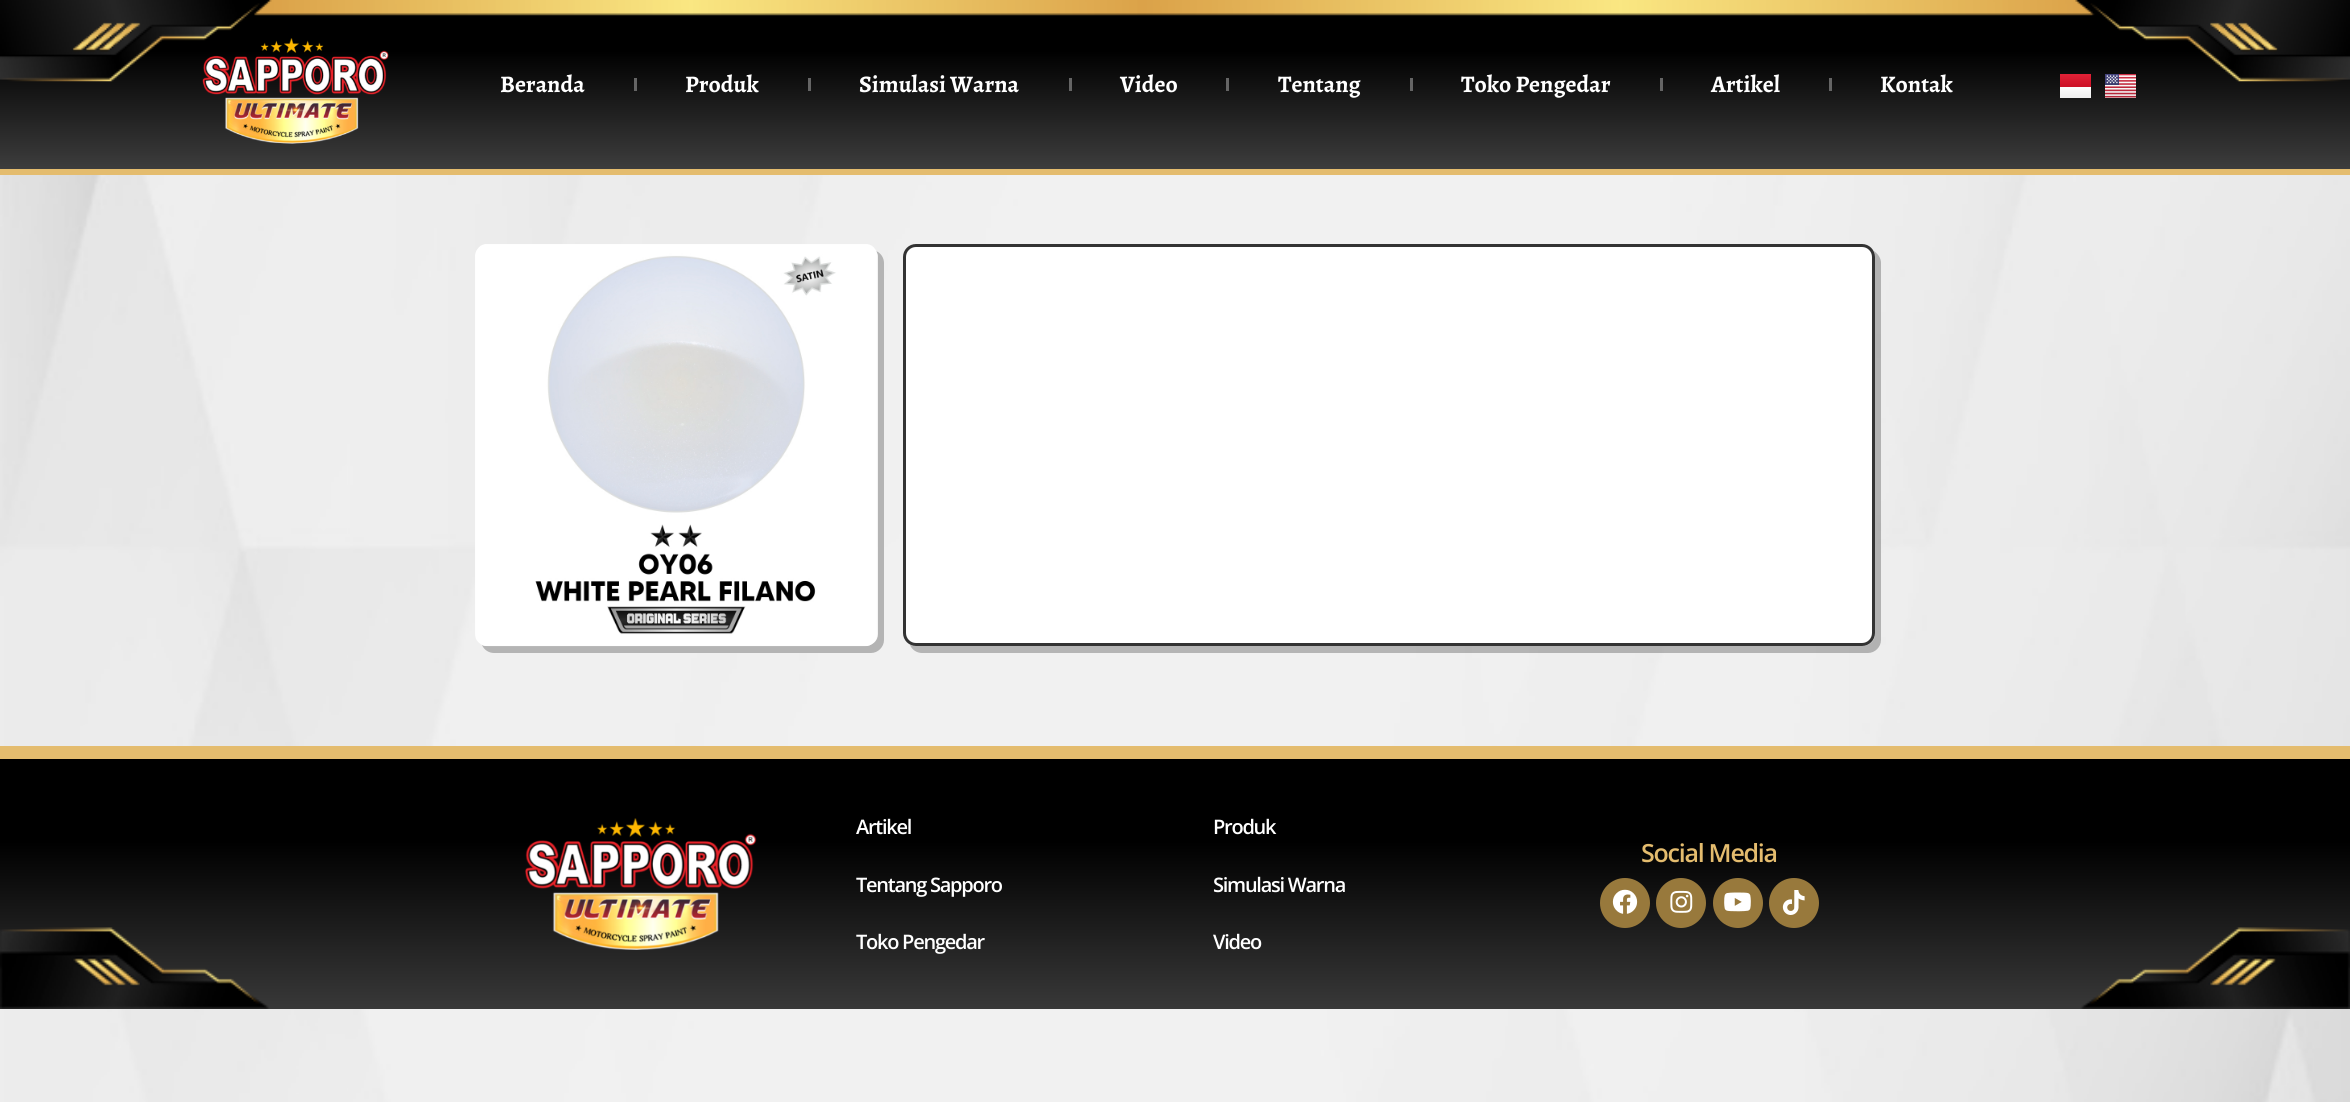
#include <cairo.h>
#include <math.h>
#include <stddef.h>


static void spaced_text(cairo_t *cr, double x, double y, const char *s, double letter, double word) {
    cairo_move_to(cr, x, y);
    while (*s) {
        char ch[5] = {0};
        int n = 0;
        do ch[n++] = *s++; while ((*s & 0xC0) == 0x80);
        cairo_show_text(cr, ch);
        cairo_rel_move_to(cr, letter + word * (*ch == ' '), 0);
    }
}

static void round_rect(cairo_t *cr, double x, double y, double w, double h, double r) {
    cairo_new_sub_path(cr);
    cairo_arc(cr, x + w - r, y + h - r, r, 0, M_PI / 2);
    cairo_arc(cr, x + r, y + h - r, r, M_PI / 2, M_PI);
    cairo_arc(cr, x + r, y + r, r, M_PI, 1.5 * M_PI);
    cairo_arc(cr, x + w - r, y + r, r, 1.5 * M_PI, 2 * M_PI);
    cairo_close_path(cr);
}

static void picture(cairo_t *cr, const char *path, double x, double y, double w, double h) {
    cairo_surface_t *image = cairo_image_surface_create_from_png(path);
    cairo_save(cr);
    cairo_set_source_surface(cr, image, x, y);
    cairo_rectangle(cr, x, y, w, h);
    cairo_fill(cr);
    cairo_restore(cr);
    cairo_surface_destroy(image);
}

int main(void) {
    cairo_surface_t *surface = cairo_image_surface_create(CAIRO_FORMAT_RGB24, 2350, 1102);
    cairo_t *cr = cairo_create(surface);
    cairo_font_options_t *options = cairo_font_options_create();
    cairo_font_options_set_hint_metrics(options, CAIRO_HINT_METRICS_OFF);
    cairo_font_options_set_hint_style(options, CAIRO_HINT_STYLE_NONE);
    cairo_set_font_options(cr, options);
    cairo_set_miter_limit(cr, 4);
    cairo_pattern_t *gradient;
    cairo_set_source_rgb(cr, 1, 1, 1);
    cairo_paint(cr);
    picture(cr, "img1.png", 0, 175, 2350, 927);
    gradient = cairo_pattern_create_linear(1175, 0, 1175, 169);
    cairo_pattern_add_color_stop_rgba(gradient, 0.3, 0, 0, 0, 1);
    cairo_pattern_add_color_stop_rgba(gradient, 1, 0.239, 0.239, 0.239, 1);
    cairo_set_source(cr, gradient);
    cairo_pattern_destroy(gradient);
    cairo_rectangle(cr, 0, 0, 2350, 169);
    cairo_fill(cr);
    cairo_set_source_rgb(cr, 0.894, 0.737, 0.431);
    cairo_rectangle(cr, 0, 169, 2350, 6);
    cairo_fill(cr);
    picture(cr, "img2.png", 0, 0, 2350, 82);
    picture(cr, "img3.png", 202, 38, 187, 106);
    cairo_select_font_face(cr, "Alegreya", CAIRO_FONT_SLANT_NORMAL, CAIRO_FONT_WEIGHT_BOLD);
    cairo_set_font_size(cr, 23.75);
    cairo_set_source_rgb(cr, 1, 1, 1);
    cairo_move_to(cr, 500, 92);
    cairo_show_text(cr, "Beranda");
    cairo_set_source_rgb(cr, 0.396, 0.396, 0.396);
    cairo_rectangle(cr, 634, 78, 3, 13);
    cairo_fill(cr);
    cairo_set_source_rgb(cr, 1, 1, 1);
    cairo_move_to(cr, 685, 92);
    cairo_show_text(cr, "Produk");
    cairo_set_source_rgb(cr, 0.396, 0.396, 0.396);
    cairo_rectangle(cr, 808, 78, 3, 13);
    cairo_fill(cr);
    cairo_set_source_rgb(cr, 1, 1, 1);
    cairo_move_to(cr, 859, 92);
    cairo_show_text(cr, "Simulasi Warna");
    cairo_set_source_rgb(cr, 0.396, 0.396, 0.396);
    cairo_rectangle(cr, 1069, 78, 3, 13);
    cairo_fill(cr);
    cairo_set_source_rgb(cr, 1, 1, 1);
    cairo_move_to(cr, 1120, 92);
    cairo_show_text(cr, "Video");
    cairo_set_source_rgb(cr, 0.396, 0.396, 0.396);
    cairo_rectangle(cr, 1226, 78, 3, 13);
    cairo_fill(cr);
    cairo_set_source_rgb(cr, 1, 1, 1);
    cairo_move_to(cr, 1278, 92);
    cairo_show_text(cr, "Tentang");
    cairo_set_source_rgb(cr, 0.396, 0.396, 0.396);
    cairo_rectangle(cr, 1410, 78, 3, 13);
    cairo_fill(cr);
    cairo_set_source_rgb(cr, 1, 1, 1);
    cairo_move_to(cr, 1461, 92);
    cairo_show_text(cr, "Toko Pengedar");
    cairo_set_source_rgb(cr, 0.396, 0.396, 0.396);
    cairo_rectangle(cr, 1660, 78, 3, 13);
    cairo_fill(cr);
    cairo_set_source_rgb(cr, 1, 1, 1);
    cairo_move_to(cr, 1711, 92);
    cairo_show_text(cr, "Artikel");
    cairo_set_source_rgb(cr, 0.396, 0.396, 0.396);
    cairo_rectangle(cr, 1829, 78, 3, 13);
    cairo_fill(cr);
    cairo_set_source_rgb(cr, 1, 1, 1);
    cairo_move_to(cr, 1880, 92);
    cairo_show_text(cr, "Kontak");
    gradient = cairo_pattern_create_linear(2077, 74, 2077, 86);
    cairo_pattern_add_color_stop_rgba(gradient, 0, 0.882, 0.133, 0.216, 1);
    cairo_pattern_add_color_stop_rgba(gradient, 1, 0.808, 0.067, 0.149, 1);
    cairo_set_source(cr, gradient);
    cairo_pattern_destroy(gradient);
    cairo_rectangle(cr, 2060, 74, 31, 13);
    cairo_fill(cr);
    gradient = cairo_pattern_create_linear(2077, 86, 2077, 97);
    cairo_pattern_add_color_stop_rgba(gradient, 0, 1, 1, 1, 1);
    cairo_pattern_add_color_stop_rgba(gradient, 1, 0.941, 0.941, 0.941, 1);
    cairo_set_source(cr, gradient);
    cairo_pattern_destroy(gradient);
    cairo_rectangle(cr, 2060, 87, 31, 11);
    cairo_fill(cr);
    picture(cr, "img4.png", 2105, 74, 31, 24);
    cairo_set_source_rgb(cr, 0.706, 0.706, 0.706);
    cairo_new_path(cr);
    cairo_move_to(cr, 482, 645);
    cairo_curve_to(cr, 484, 650, 489, 653, 494, 653);
    cairo_line_to(cr, 871, 653);
    cairo_curve_to(cr, 878, 653, 884, 647, 884, 640);
    cairo_line_to(cr, 884, 263);
    cairo_curve_to(cr, 884, 258, 881, 253, 876, 251);
    cairo_curve_to(cr, 877, 253, 878, 254, 878, 256);
    cairo_line_to(cr, 878, 634);
    cairo_curve_to(cr, 878, 641, 872, 646, 865, 646);
    cairo_line_to(cr, 488, 646);
    cairo_curve_to(cr, 486, 646, 484, 646, 482, 645);
    cairo_close_path(cr);
    cairo_fill(cr);
    picture(cr, "img5.png", 475, 244, 403, 403);
    cairo_set_source_rgba(cr, 0, 0, 0, 0.25);
    cairo_new_path(cr);
    cairo_move_to(cr, 910, 645);
    cairo_curve_to(cr, 912, 650, 917, 653, 922, 653);
    cairo_line_to(cr, 1868, 653);
    cairo_curve_to(cr, 1875, 653, 1881, 647, 1881, 640);
    cairo_line_to(cr, 1881, 263);
    cairo_curve_to(cr, 1881, 258, 1878, 254, 1874, 251);
    cairo_line_to(cr, 1875, 256);
    cairo_line_to(cr, 1875, 634);
    cairo_curve_to(cr, 1875, 641, 1869, 646, 1862, 646);
    cairo_line_to(cr, 915, 646);
    cairo_close_path(cr);
    cairo_fill(cr);
    cairo_set_source_rgb(cr, 1, 1, 1);
    round_rect(cr, 904.5, 245.5, 969, 399, 11.5);
    cairo_fill_preserve(cr);
    cairo_set_source_rgb(cr, 0.2, 0.2, 0.2);
    cairo_set_line_width(cr, 3);
    cairo_stroke(cr);
    gradient = cairo_pattern_create_linear(1175, 759, 1175, 1009);
    cairo_pattern_add_color_stop_rgba(gradient, 0.33, 0, 0, 0, 1);
    cairo_pattern_add_color_stop_rgba(gradient, 1, 0.22, 0.22, 0.22, 1);
    cairo_set_source(cr, gradient);
    cairo_pattern_destroy(gradient);
    cairo_rectangle(cr, 0, 759, 2350, 250);
    cairo_fill(cr);
    cairo_set_source_rgb(cr, 0.894, 0.737, 0.431);
    cairo_rectangle(cr, 0, 746, 2350, 13);
    cairo_fill(cr);
    picture(cr, "img11.png", 0, 927, 2350, 82);
    picture(cr, "img6.png", 525, 818, 232, 132);
    cairo_select_font_face(cr, "Open Sans SemiBold", CAIRO_FONT_SLANT_NORMAL, CAIRO_FONT_WEIGHT_NORMAL);
    cairo_set_font_size(cr, 20);
    cairo_set_source_rgb(cr, 1, 1, 1);
    spaced_text(cr, 856, 834, "Artikel", -1.25, 0);
    spaced_text(cr, 856, 892, "Tentang Sapporo", -1.25, 0);
    spaced_text(cr, 856, 949, "Toko Pengedar", -1.25, 0);
    spaced_text(cr, 1213, 834, "Produk", -1.25, 0);
    spaced_text(cr, 1213, 892, "Simulasi Warna", -1.25, 0);
    spaced_text(cr, 1213, 949, "Video", -1.25, 0);
    cairo_set_font_size(cr, 25);
    cairo_set_source_rgb(cr, 0.894, 0.737, 0.431);
    spaced_text(cr, 1641, 862, "Social Media", -1.25, 0);
    cairo_set_source_rgb(cr, 0.596, 0.475, 0.235);
    cairo_new_path(cr);
    cairo_arc(cr, 1625, 903, 25, 0, 2 * M_PI);
    cairo_fill(cr);
    picture(cr, "img7.png", 1612, 889, 26, 25);
    cairo_arc(cr, 1681, 903, 25, 0, 2 * M_PI);
    cairo_fill(cr);
    picture(cr, "img8.png", 1670, 890, 23, 23);
    cairo_arc(cr, 1738, 903, 25, 0, 2 * M_PI);
    cairo_fill(cr);
    picture(cr, "img9.png", 1724, 892, 27, 20);
    cairo_arc(cr, 1794, 903, 25, 0, 2 * M_PI);
    cairo_fill(cr);
    picture(cr, "img10.png", 1782, 890, 23, 25);
    cairo_surface_write_to_png(surface, "page.png");
    cairo_font_options_destroy(options);
    cairo_destroy(cr);
    cairo_surface_destroy(surface);
    return 0;
}
